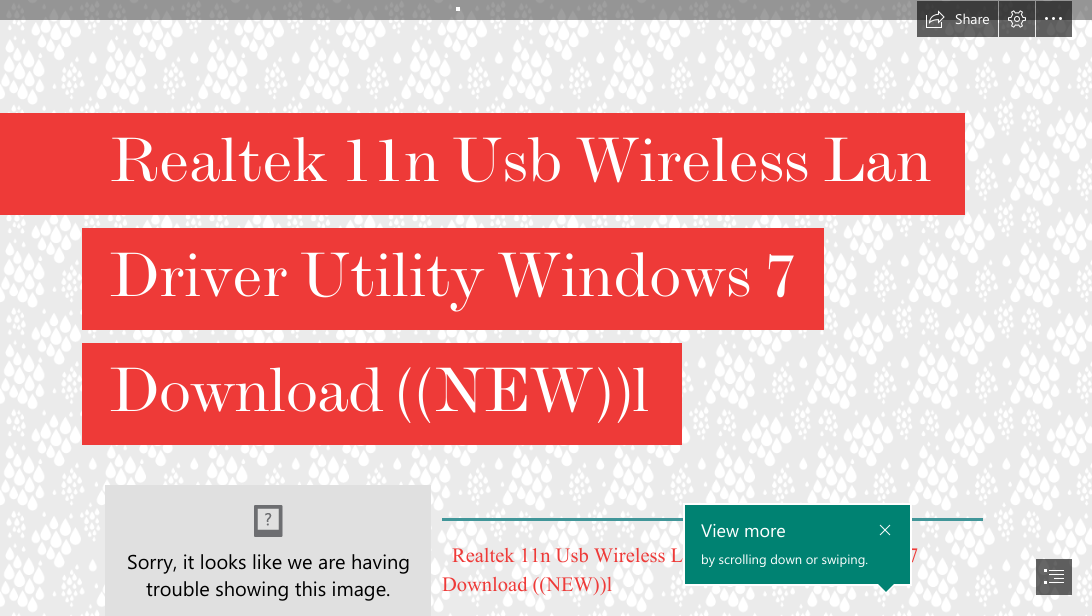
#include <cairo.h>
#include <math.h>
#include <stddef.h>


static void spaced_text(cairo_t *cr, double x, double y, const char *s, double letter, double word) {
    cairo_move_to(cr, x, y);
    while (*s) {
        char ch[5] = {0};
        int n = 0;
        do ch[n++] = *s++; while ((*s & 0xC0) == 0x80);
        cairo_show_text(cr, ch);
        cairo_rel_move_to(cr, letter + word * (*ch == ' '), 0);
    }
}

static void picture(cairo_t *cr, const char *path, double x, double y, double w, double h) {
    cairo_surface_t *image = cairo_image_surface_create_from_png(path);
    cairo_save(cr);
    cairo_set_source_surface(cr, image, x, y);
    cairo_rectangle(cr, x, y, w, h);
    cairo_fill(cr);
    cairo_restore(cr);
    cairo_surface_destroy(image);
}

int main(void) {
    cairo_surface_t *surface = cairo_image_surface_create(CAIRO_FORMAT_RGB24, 1092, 616);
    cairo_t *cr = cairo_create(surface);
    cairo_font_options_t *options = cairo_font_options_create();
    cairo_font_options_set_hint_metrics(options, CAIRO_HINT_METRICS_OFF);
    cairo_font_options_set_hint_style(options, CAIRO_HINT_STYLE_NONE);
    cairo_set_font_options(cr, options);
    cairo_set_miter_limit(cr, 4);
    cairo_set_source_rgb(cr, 0.918, 0.918, 0.918);
    cairo_paint(cr);
    picture(cr, "img4.png", 0, 0, 1092, 616);
    cairo_set_source_rgba(cr, 0.251, 0.251, 0.251, 0.5);
    cairo_rectangle(cr, 0, 0, 1092, 20);
    cairo_fill(cr);
    cairo_set_source_rgba(cr, 0, 0, 0, 0.6);
    cairo_rectangle(cr, 917, 1, 81, 36);
    cairo_fill(cr);
    picture(cr, "img1.png", 926, 10, 19, 18);
    cairo_select_font_face(cr, "Segoe UI", CAIRO_FONT_SLANT_NORMAL, CAIRO_FONT_WEIGHT_NORMAL);
    cairo_set_font_size(cr, 14);
    cairo_set_source_rgb(cr, 1, 1, 1);
    cairo_move_to(cr, 955, 24);
    cairo_show_text(cr, "Share");
    cairo_set_source_rgba(cr, 0, 0, 0, 0.6);
    cairo_rectangle(cr, 999, 1, 36, 36);
    cairo_fill(cr);
    picture(cr, "img2.png", 1008, 10, 18, 18);
    cairo_rectangle(cr, 1036, 1, 36, 36);
    cairo_fill(cr);
    picture(cr, "img3.png", 1045, 17, 17, 3);
    cairo_set_source_rgb(cr, 1, 1, 1);
    cairo_rectangle(cr, 456, 7, 4, 4);
    cairo_fill(cr);
    cairo_set_source_rgb(cr, 0.933, 0.227, 0.22);
    cairo_rectangle(cr, 0, 113, 965, 102);
    cairo_fill(cr);
    cairo_select_font_face(cr, "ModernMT", CAIRO_FONT_SLANT_NORMAL, CAIRO_FONT_WEIGHT_NORMAL);
    cairo_set_font_size(cr, 64);
    cairo_set_source_rgb(cr, 1, 1, 1);
    spaced_text(cr, 109, 181, "Realtek 11n Usb Wireless Lan", -0.75, 0);
    cairo_set_source_rgb(cr, 0.933, 0.227, 0.22);
    cairo_rectangle(cr, 82, 228, 742, 102);
    cairo_fill(cr);
    cairo_set_source_rgb(cr, 1, 1, 1);
    spaced_text(cr, 109, 296, "Driver Utility Windows 7", -0.75, 0);
    cairo_set_source_rgb(cr, 0.933, 0.227, 0.22);
    cairo_rectangle(cr, 82, 343, 600, 102);
    cairo_fill(cr);
    cairo_set_source_rgb(cr, 1, 1, 1);
    spaced_text(cr, 109, 411, "Download ((NEW))l", -1.5, 0);
    cairo_set_source_rgb(cr, 0.878, 0.878, 0.878);
    cairo_rectangle(cr, 105, 485, 326, 131);
    cairo_fill(cr);
    picture(cr, "img5.png", 254, 505, 29, 32);
    cairo_select_font_face(cr, "Segoe UI", CAIRO_FONT_SLANT_NORMAL, CAIRO_FONT_WEIGHT_NORMAL);
    cairo_set_font_size(cr, 20);
    cairo_set_source_rgb(cr, 0, 0, 0);
    cairo_move_to(cr, 127, 569);
    cairo_show_text(cr, "Sorry, it looks like we are having");
    cairo_move_to(cr, 146, 596);
    cairo_show_text(cr, "trouble showing this image.");
    cairo_set_source_rgb(cr, 0.255, 0.588, 0.6);
    cairo_rectangle(cr, 442, 518, 541, 3);
    cairo_fill(cr);
    cairo_select_font_face(cr, "Times New Roman", CAIRO_FONT_SLANT_NORMAL, CAIRO_FONT_WEIGHT_NORMAL);
    cairo_set_font_size(cr, 20.5);
    cairo_set_source_rgb(cr, 0.933, 0.227, 0.22);
    cairo_move_to(cr, 452, 562);
    cairo_show_text(cr, "Realtek 11n Usb Wireless L");
    cairo_move_to(cr, 908, 562);
    cairo_show_text(cr, "7");
    cairo_move_to(cr, 442, 591);
    cairo_show_text(cr, "Download ((NEW))l");
    cairo_set_source_rgb(cr, 0, 0.51, 0.447);
    cairo_rectangle(cr, 684, 504, 227, 81);
    cairo_fill_preserve(cr);
    cairo_set_source_rgb(cr, 1, 1, 1);
    cairo_stroke(cr);
    cairo_select_font_face(cr, "Segoe UI", CAIRO_FONT_SLANT_NORMAL, CAIRO_FONT_WEIGHT_NORMAL);
    cairo_set_font_size(cr, 18);
    cairo_move_to(cr, 701, 537);
    cairo_show_text(cr, "View more");
    cairo_set_font_size(cr, 13);
    cairo_move_to(cr, 701, 564);
    cairo_show_text(cr, "by scrolling down or swiping.");
    picture(cr, "img6.png", 879, 524, 12, 12);
    cairo_new_path(cr);
    cairo_move_to(cr, 876, 584);
    cairo_line_to(cr, 896, 584);
    cairo_line_to(cr, 886, 594);
    cairo_close_path(cr);
    cairo_fill(cr);
    cairo_set_source_rgb(cr, 0, 0.51, 0.447);
    cairo_new_path(cr);
    cairo_move_to(cr, 878, 584);
    cairo_line_to(cr, 894, 584);
    cairo_line_to(cr, 886, 592);
    cairo_close_path(cr);
    cairo_fill(cr);
    cairo_set_source_rgba(cr, 0, 0, 0, 0.6);
    cairo_rectangle(cr, 1036, 559, 36, 36);
    cairo_fill(cr);
    picture(cr, "img7.png", 1044, 569, 20, 15);
    cairo_surface_write_to_png(surface, "page.png");
    cairo_font_options_destroy(options);
    cairo_destroy(cr);
    cairo_surface_destroy(surface);
    return 0;
}
